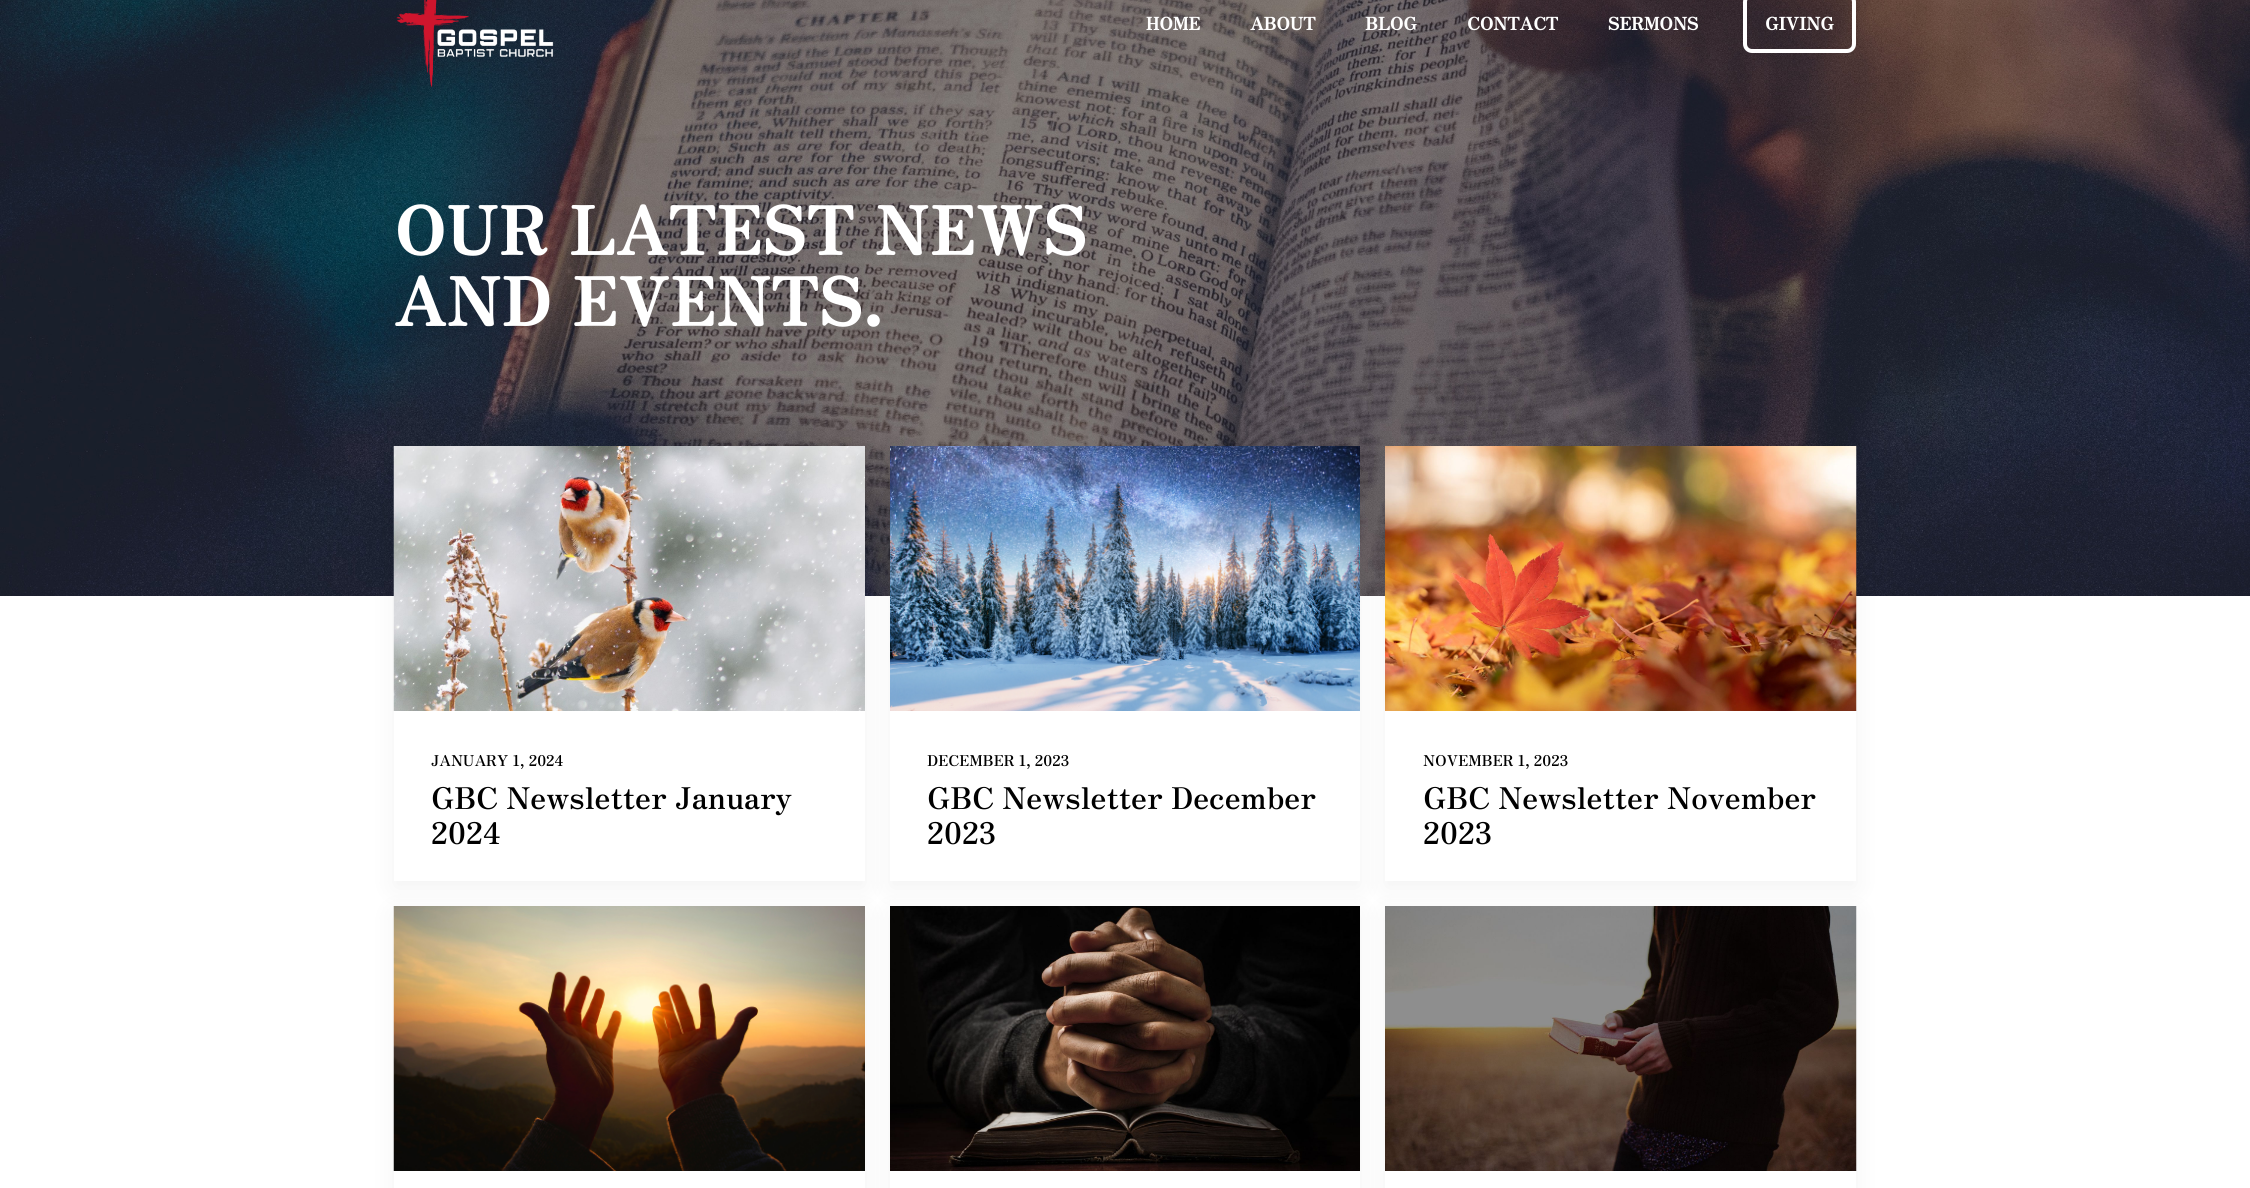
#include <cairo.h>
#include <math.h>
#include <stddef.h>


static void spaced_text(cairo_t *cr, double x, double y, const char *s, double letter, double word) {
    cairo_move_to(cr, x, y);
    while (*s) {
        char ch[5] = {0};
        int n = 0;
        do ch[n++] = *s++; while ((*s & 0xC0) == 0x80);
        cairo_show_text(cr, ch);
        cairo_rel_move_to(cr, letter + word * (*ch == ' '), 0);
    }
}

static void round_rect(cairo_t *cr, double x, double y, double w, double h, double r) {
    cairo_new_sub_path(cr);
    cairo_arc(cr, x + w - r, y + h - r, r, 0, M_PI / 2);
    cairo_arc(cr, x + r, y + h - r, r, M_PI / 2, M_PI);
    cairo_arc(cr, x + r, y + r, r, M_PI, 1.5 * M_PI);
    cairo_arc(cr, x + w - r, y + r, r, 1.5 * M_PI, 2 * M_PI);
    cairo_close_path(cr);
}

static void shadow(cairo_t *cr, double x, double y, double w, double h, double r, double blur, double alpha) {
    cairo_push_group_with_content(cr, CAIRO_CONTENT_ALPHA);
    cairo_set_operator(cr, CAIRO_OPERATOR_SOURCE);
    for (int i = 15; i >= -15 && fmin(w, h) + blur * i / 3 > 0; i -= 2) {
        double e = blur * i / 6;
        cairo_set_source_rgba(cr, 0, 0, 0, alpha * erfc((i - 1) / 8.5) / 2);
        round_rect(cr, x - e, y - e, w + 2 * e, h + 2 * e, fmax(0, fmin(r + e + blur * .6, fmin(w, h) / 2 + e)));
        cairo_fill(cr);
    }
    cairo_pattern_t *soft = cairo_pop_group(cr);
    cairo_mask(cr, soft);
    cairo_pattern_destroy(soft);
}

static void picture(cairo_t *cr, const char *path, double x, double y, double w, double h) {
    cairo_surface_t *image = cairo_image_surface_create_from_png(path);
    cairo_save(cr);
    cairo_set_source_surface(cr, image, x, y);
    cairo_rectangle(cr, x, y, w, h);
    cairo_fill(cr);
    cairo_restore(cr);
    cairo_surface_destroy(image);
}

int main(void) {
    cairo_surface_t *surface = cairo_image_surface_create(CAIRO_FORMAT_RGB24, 2250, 1188);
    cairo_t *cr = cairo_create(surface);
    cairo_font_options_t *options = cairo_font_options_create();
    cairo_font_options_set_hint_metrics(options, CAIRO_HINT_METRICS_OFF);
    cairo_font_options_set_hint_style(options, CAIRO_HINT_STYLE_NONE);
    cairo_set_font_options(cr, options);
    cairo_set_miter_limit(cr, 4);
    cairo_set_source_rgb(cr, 1, 1, 1);
    cairo_paint(cr);
    picture(cr, "img2.png", 0, 0, 2250, 596);
    picture(cr, "img1.png", 396, 0, 158, 88);
    cairo_select_font_face(cr, "Zen Antique", CAIRO_FONT_SLANT_NORMAL, CAIRO_FONT_WEIGHT_BOLD);
    cairo_set_font_size(cr, 17.5);
    cairo_set_source_rgb(cr, 1, 1, 1);
    cairo_move_to(cr, 1146, 30);
    cairo_show_text(cr, "HOME");
    cairo_move_to(cr, 1250, 30);
    cairo_show_text(cr, "ABOUT");
    cairo_move_to(cr, 1365, 30);
    cairo_show_text(cr, "BLOG");
    cairo_move_to(cr, 1467, 30);
    cairo_show_text(cr, "CONTACT");
    cairo_move_to(cr, 1608, 30);
    cairo_show_text(cr, "SERMONS");
    round_rect(cr, 1745, -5, 109, 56, 7);
    cairo_set_line_width(cr, 4);
    cairo_stroke(cr);
    cairo_move_to(cr, 1765, 30);
    cairo_show_text(cr, "GIVING");
    cairo_set_font_size(cr, 66.25);
    spaced_text(cr, 394, 255, "OUR LATEST NEWS", 1.5, 0);
    spaced_text(cr, 394, 326, "AND EVENTS.", 1.5, 0);
    cairo_set_source_rgb(cr, 0, 0, 0);
    shadow(cr, 394, 453, 471, 435, 0, 12.5, 0.05);
    cairo_set_source_rgb(cr, 1, 1, 1);
    cairo_rectangle(cr, 394, 711, 471, 170);
    cairo_fill(cr);
    picture(cr, "img3.png", 393, 446, 472, 265);
    cairo_select_font_face(cr, "Zen Antique", CAIRO_FONT_SLANT_NORMAL, CAIRO_FONT_WEIGHT_NORMAL);
    cairo_set_font_size(cr, 15);
    cairo_set_source_rgb(cr, 0, 0, 0);
    cairo_move_to(cr, 431, 766);
    cairo_show_text(cr, "JANUARY 1, 2024");
    cairo_set_font_size(cr, 30);
    cairo_move_to(cr, 431, 809);
    cairo_show_text(cr, "GBC Newsletter January");
    cairo_move_to(cr, 431, 844);
    cairo_show_text(cr, "2024");
    cairo_set_source_rgb(cr, 0, 0, 0);
    shadow(cr, 890, 453, 470, 435, 0, 12.5, 0.05);
    cairo_set_source_rgb(cr, 1, 1, 1);
    cairo_rectangle(cr, 890, 711, 470, 170);
    cairo_fill(cr);
    picture(cr, "img4.png", 890, 446, 470, 265);
    cairo_set_font_size(cr, 15);
    cairo_set_source_rgb(cr, 0, 0, 0);
    cairo_move_to(cr, 927, 766);
    cairo_show_text(cr, "DECEMBER 1, 2023");
    cairo_set_font_size(cr, 30);
    cairo_move_to(cr, 927, 809);
    cairo_show_text(cr, "GBC Newsletter December");
    cairo_move_to(cr, 927, 844);
    cairo_show_text(cr, "2023");
    cairo_set_source_rgb(cr, 0, 0, 0);
    shadow(cr, 1385, 453, 471, 435, 0, 12.5, 0.05);
    cairo_set_source_rgb(cr, 1, 1, 1);
    cairo_rectangle(cr, 1385, 711, 471, 170);
    cairo_fill(cr);
    picture(cr, "img5.png", 1385, 446, 472, 265);
    cairo_set_font_size(cr, 15);
    cairo_set_source_rgb(cr, 0, 0, 0);
    cairo_move_to(cr, 1423, 766);
    cairo_show_text(cr, "NOVEMBER 1, 2023");
    cairo_set_font_size(cr, 30);
    cairo_move_to(cr, 1423, 809);
    cairo_show_text(cr, "GBC Newsletter November");
    cairo_move_to(cr, 1423, 844);
    cairo_show_text(cr, "2023");
    cairo_set_source_rgb(cr, 0, 0, 0);
    shadow(cr, 394, 913, 471, 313, 0, 12.5, 0.05);
    cairo_set_source_rgb(cr, 1, 1, 1);
    cairo_rectangle(cr, 394, 1171, 471, 17);
    cairo_fill(cr);
    picture(cr, "img6.png", 393, 906, 472, 265);
    cairo_set_source_rgb(cr, 0, 0, 0);
    shadow(cr, 890, 913, 470, 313, 0, 12.5, 0.05);
    cairo_set_source_rgb(cr, 1, 1, 1);
    cairo_rectangle(cr, 890, 1171, 470, 17);
    cairo_fill(cr);
    picture(cr, "img7.png", 890, 906, 470, 265);
    cairo_set_source_rgb(cr, 0, 0, 0);
    shadow(cr, 1385, 913, 471, 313, 0, 12.5, 0.05);
    cairo_set_source_rgb(cr, 1, 1, 1);
    cairo_rectangle(cr, 1385, 1171, 471, 17);
    cairo_fill(cr);
    picture(cr, "img8.png", 1385, 906, 472, 265);
    cairo_surface_write_to_png(surface, "page.png");
    cairo_font_options_destroy(options);
    cairo_destroy(cr);
    cairo_surface_destroy(surface);
    return 0;
}
